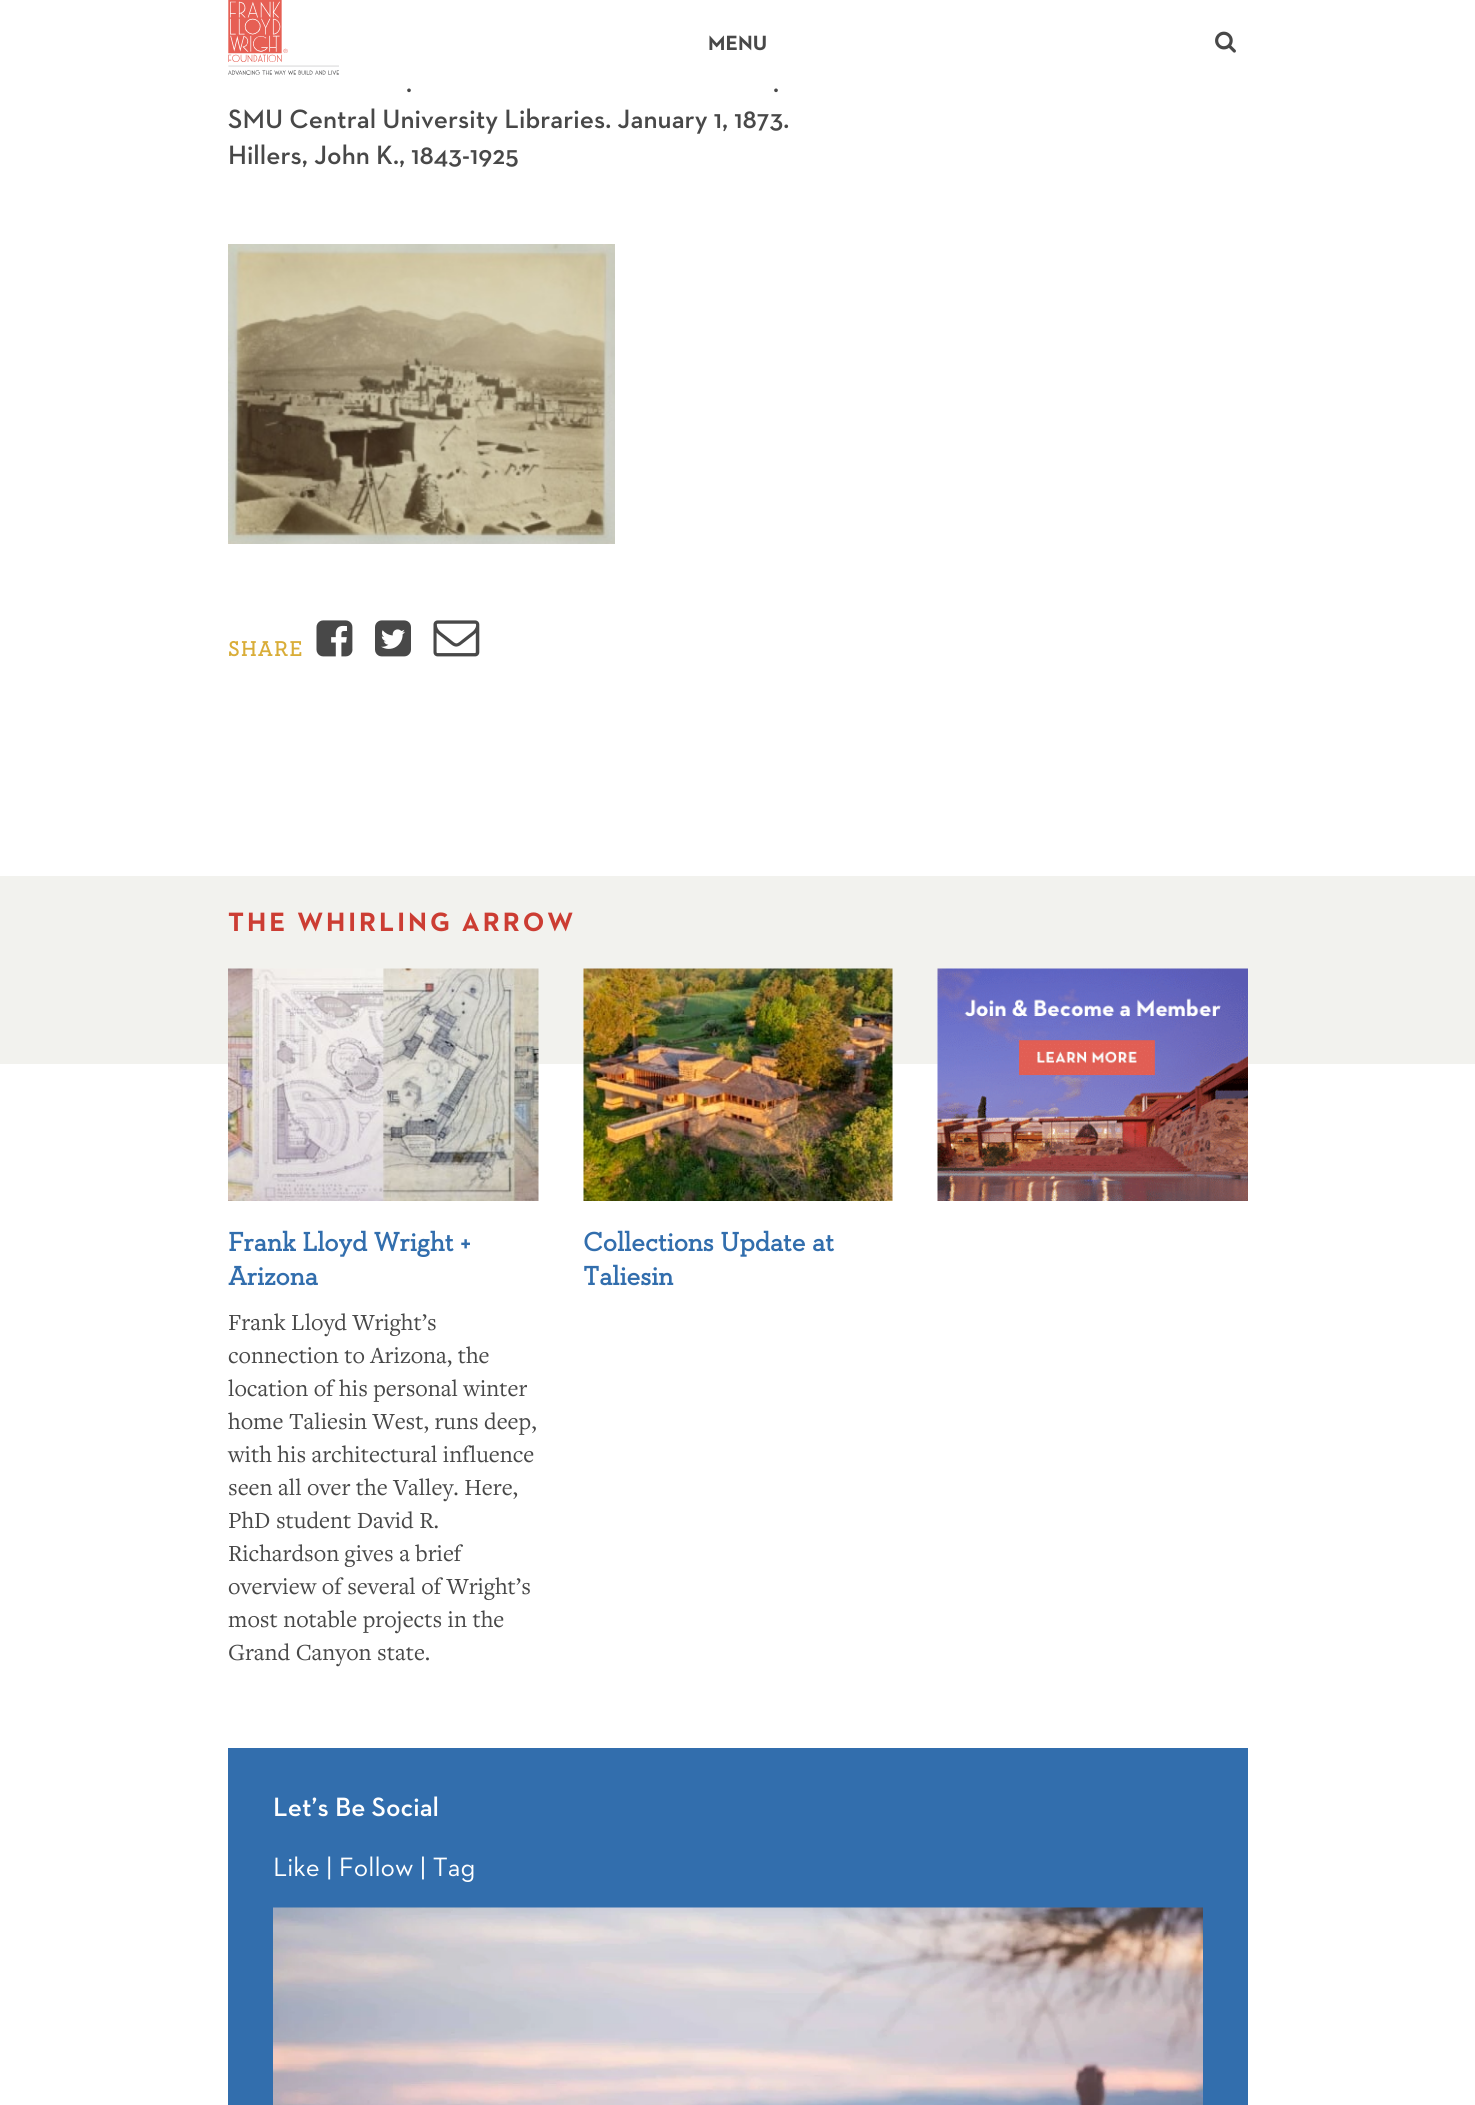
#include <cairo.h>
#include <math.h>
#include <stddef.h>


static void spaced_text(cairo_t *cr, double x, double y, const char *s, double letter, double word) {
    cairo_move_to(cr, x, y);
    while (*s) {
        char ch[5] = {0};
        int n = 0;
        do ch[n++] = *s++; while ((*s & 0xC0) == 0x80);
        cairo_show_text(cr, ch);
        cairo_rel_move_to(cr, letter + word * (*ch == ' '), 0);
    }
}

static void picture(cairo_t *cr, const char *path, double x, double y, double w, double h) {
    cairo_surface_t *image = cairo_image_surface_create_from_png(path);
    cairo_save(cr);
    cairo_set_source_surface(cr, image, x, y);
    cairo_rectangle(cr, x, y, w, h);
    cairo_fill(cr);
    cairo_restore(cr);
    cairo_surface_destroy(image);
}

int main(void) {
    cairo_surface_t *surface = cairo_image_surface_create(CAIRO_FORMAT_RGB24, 1475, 2105);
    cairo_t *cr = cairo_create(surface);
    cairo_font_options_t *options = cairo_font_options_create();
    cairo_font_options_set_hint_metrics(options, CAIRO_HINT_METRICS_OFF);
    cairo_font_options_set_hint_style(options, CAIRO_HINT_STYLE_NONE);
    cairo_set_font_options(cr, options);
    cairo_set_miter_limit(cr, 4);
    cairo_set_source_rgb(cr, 1, 1, 1);
    cairo_paint(cr);
    picture(cr, "img1.png", 228, 0, 111, 75);
    cairo_select_font_face(cr, "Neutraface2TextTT", CAIRO_FONT_SLANT_NORMAL, CAIRO_FONT_WEIGHT_BOLD);
    cairo_set_font_size(cr, 21);
    cairo_set_source_rgb(cr, 0.282, 0.282, 0.282);
    cairo_move_to(cr, 708, 50);
    cairo_show_text(cr, "MENU");
    picture(cr, "img2.png", 1215, 31, 21, 22);
    cairo_select_font_face(cr, "Neutraface2TextTT SemiBold", CAIRO_FONT_SLANT_NORMAL, CAIRO_FONT_WEIGHT_NORMAL);
    cairo_set_font_size(cr, 27);
    cairo_move_to(cr, 406, 92);
    cairo_show_text(cr, ".");
    cairo_move_to(cr, 773, 92);
    cairo_show_text(cr, ".");
    cairo_move_to(cr, 228, 128);
    cairo_show_text(cr, "SMU Central University Libraries. January 1, 1873.");
    cairo_move_to(cr, 228, 164);
    cairo_show_text(cr, "Hillers, John K., 1843-1925");
    picture(cr, "img3.png", 228, 244, 387, 300);
    cairo_select_font_face(cr, "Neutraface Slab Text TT", CAIRO_FONT_SLANT_NORMAL, CAIRO_FONT_WEIGHT_BOLD);
    cairo_set_font_size(cr, 21);
    cairo_set_source_rgb(cr, 0.851, 0.678, 0.22);
    spaced_text(cr, 228, 656, "SHARE", 1.5, 0);
    picture(cr, "img4.png", 316, 620, 37, 37);
    picture(cr, "img5.png", 375, 620, 36, 37);
    picture(cr, "img6.png", 433, 620, 47, 37);
    cairo_set_source_rgb(cr, 0.949, 0.949, 0.933);
    cairo_rectangle(cr, 0, 876, 1475, 188);
    cairo_fill(cr);
    cairo_select_font_face(cr, "Neutraface2TextTT", CAIRO_FONT_SLANT_NORMAL, CAIRO_FONT_WEIGHT_BOLD);
    cairo_set_font_size(cr, 27);
    cairo_set_source_rgb(cr, 0.8, 0.239, 0.2);
    spaced_text(cr, 228, 931, "THE WHIRLING ARROW", 3, 0);
    picture(cr, "img7.png", 937, 968, 311, 233);
    picture(cr, "img8.png", 228, 968, 311, 233);
    cairo_select_font_face(cr, "Neutraface Slab Text TT", CAIRO_FONT_SLANT_NORMAL, CAIRO_FONT_WEIGHT_BOLD);
    cairo_set_source_rgb(cr, 0.196, 0.431, 0.678);
    cairo_move_to(cr, 228, 1251);
    cairo_show_text(cr, "Frank Lloyd Wright +");
    cairo_move_to(cr, 228, 1285);
    cairo_show_text(cr, "Arizona");
    cairo_select_font_face(cr, "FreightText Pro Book", CAIRO_FONT_SLANT_NORMAL, CAIRO_FONT_WEIGHT_NORMAL);
    cairo_set_font_size(cr, 24);
    cairo_set_source_rgb(cr, 0.282, 0.282, 0.282);
    cairo_move_to(cr, 228, 1330);
    cairo_show_text(cr, "Frank Lloyd Wright’s");
    cairo_move_to(cr, 228, 1363);
    cairo_show_text(cr, "connection to Arizona, the");
    cairo_move_to(cr, 228, 1396);
    cairo_show_text(cr, "location of his personal winter");
    cairo_move_to(cr, 228, 1429);
    cairo_show_text(cr, "home Taliesin West, runs deep,");
    cairo_move_to(cr, 228, 1462);
    cairo_show_text(cr, "with his architectural influence");
    cairo_move_to(cr, 228, 1495);
    cairo_show_text(cr, "seen all over the Valley. Here,");
    cairo_move_to(cr, 228, 1528);
    cairo_show_text(cr, "PhD student David R.");
    cairo_move_to(cr, 228, 1561);
    cairo_show_text(cr, "Richardson gives a brief");
    cairo_move_to(cr, 228, 1594);
    cairo_show_text(cr, "overview of several of Wright’s");
    cairo_move_to(cr, 228, 1627);
    cairo_show_text(cr, "most notable projects in the");
    cairo_move_to(cr, 228, 1660);
    cairo_show_text(cr, "Grand Canyon state.");
    picture(cr, "img9.png", 583, 968, 310, 233);
    cairo_select_font_face(cr, "Neutraface Slab Text TT", CAIRO_FONT_SLANT_NORMAL, CAIRO_FONT_WEIGHT_BOLD);
    cairo_set_font_size(cr, 27);
    cairo_set_source_rgb(cr, 0.196, 0.431, 0.678);
    cairo_move_to(cr, 583, 1251);
    cairo_show_text(cr, "Collections Update at");
    cairo_move_to(cr, 583, 1285);
    cairo_show_text(cr, "Taliesin");
    cairo_rectangle(cr, 228, 1748, 1020, 357);
    cairo_fill(cr);
    cairo_select_font_face(cr, "Neutraface2TextTT SemiBold", CAIRO_FONT_SLANT_NORMAL, CAIRO_FONT_WEIGHT_NORMAL);
    cairo_set_source_rgb(cr, 1, 1, 1);
    cairo_move_to(cr, 273, 1816);
    cairo_show_text(cr, "Let’s Be Social");
    cairo_select_font_face(cr, "Neutraface2TextTT", CAIRO_FONT_SLANT_NORMAL, CAIRO_FONT_WEIGHT_NORMAL);
    cairo_move_to(cr, 273, 1876);
    cairo_show_text(cr, "Like | Follow | Tag");
    picture(cr, "img10.png", 273, 1907, 930, 198);
    cairo_surface_write_to_png(surface, "page.png");
    cairo_font_options_destroy(options);
    cairo_destroy(cr);
    cairo_surface_destroy(surface);
    return 0;
}
